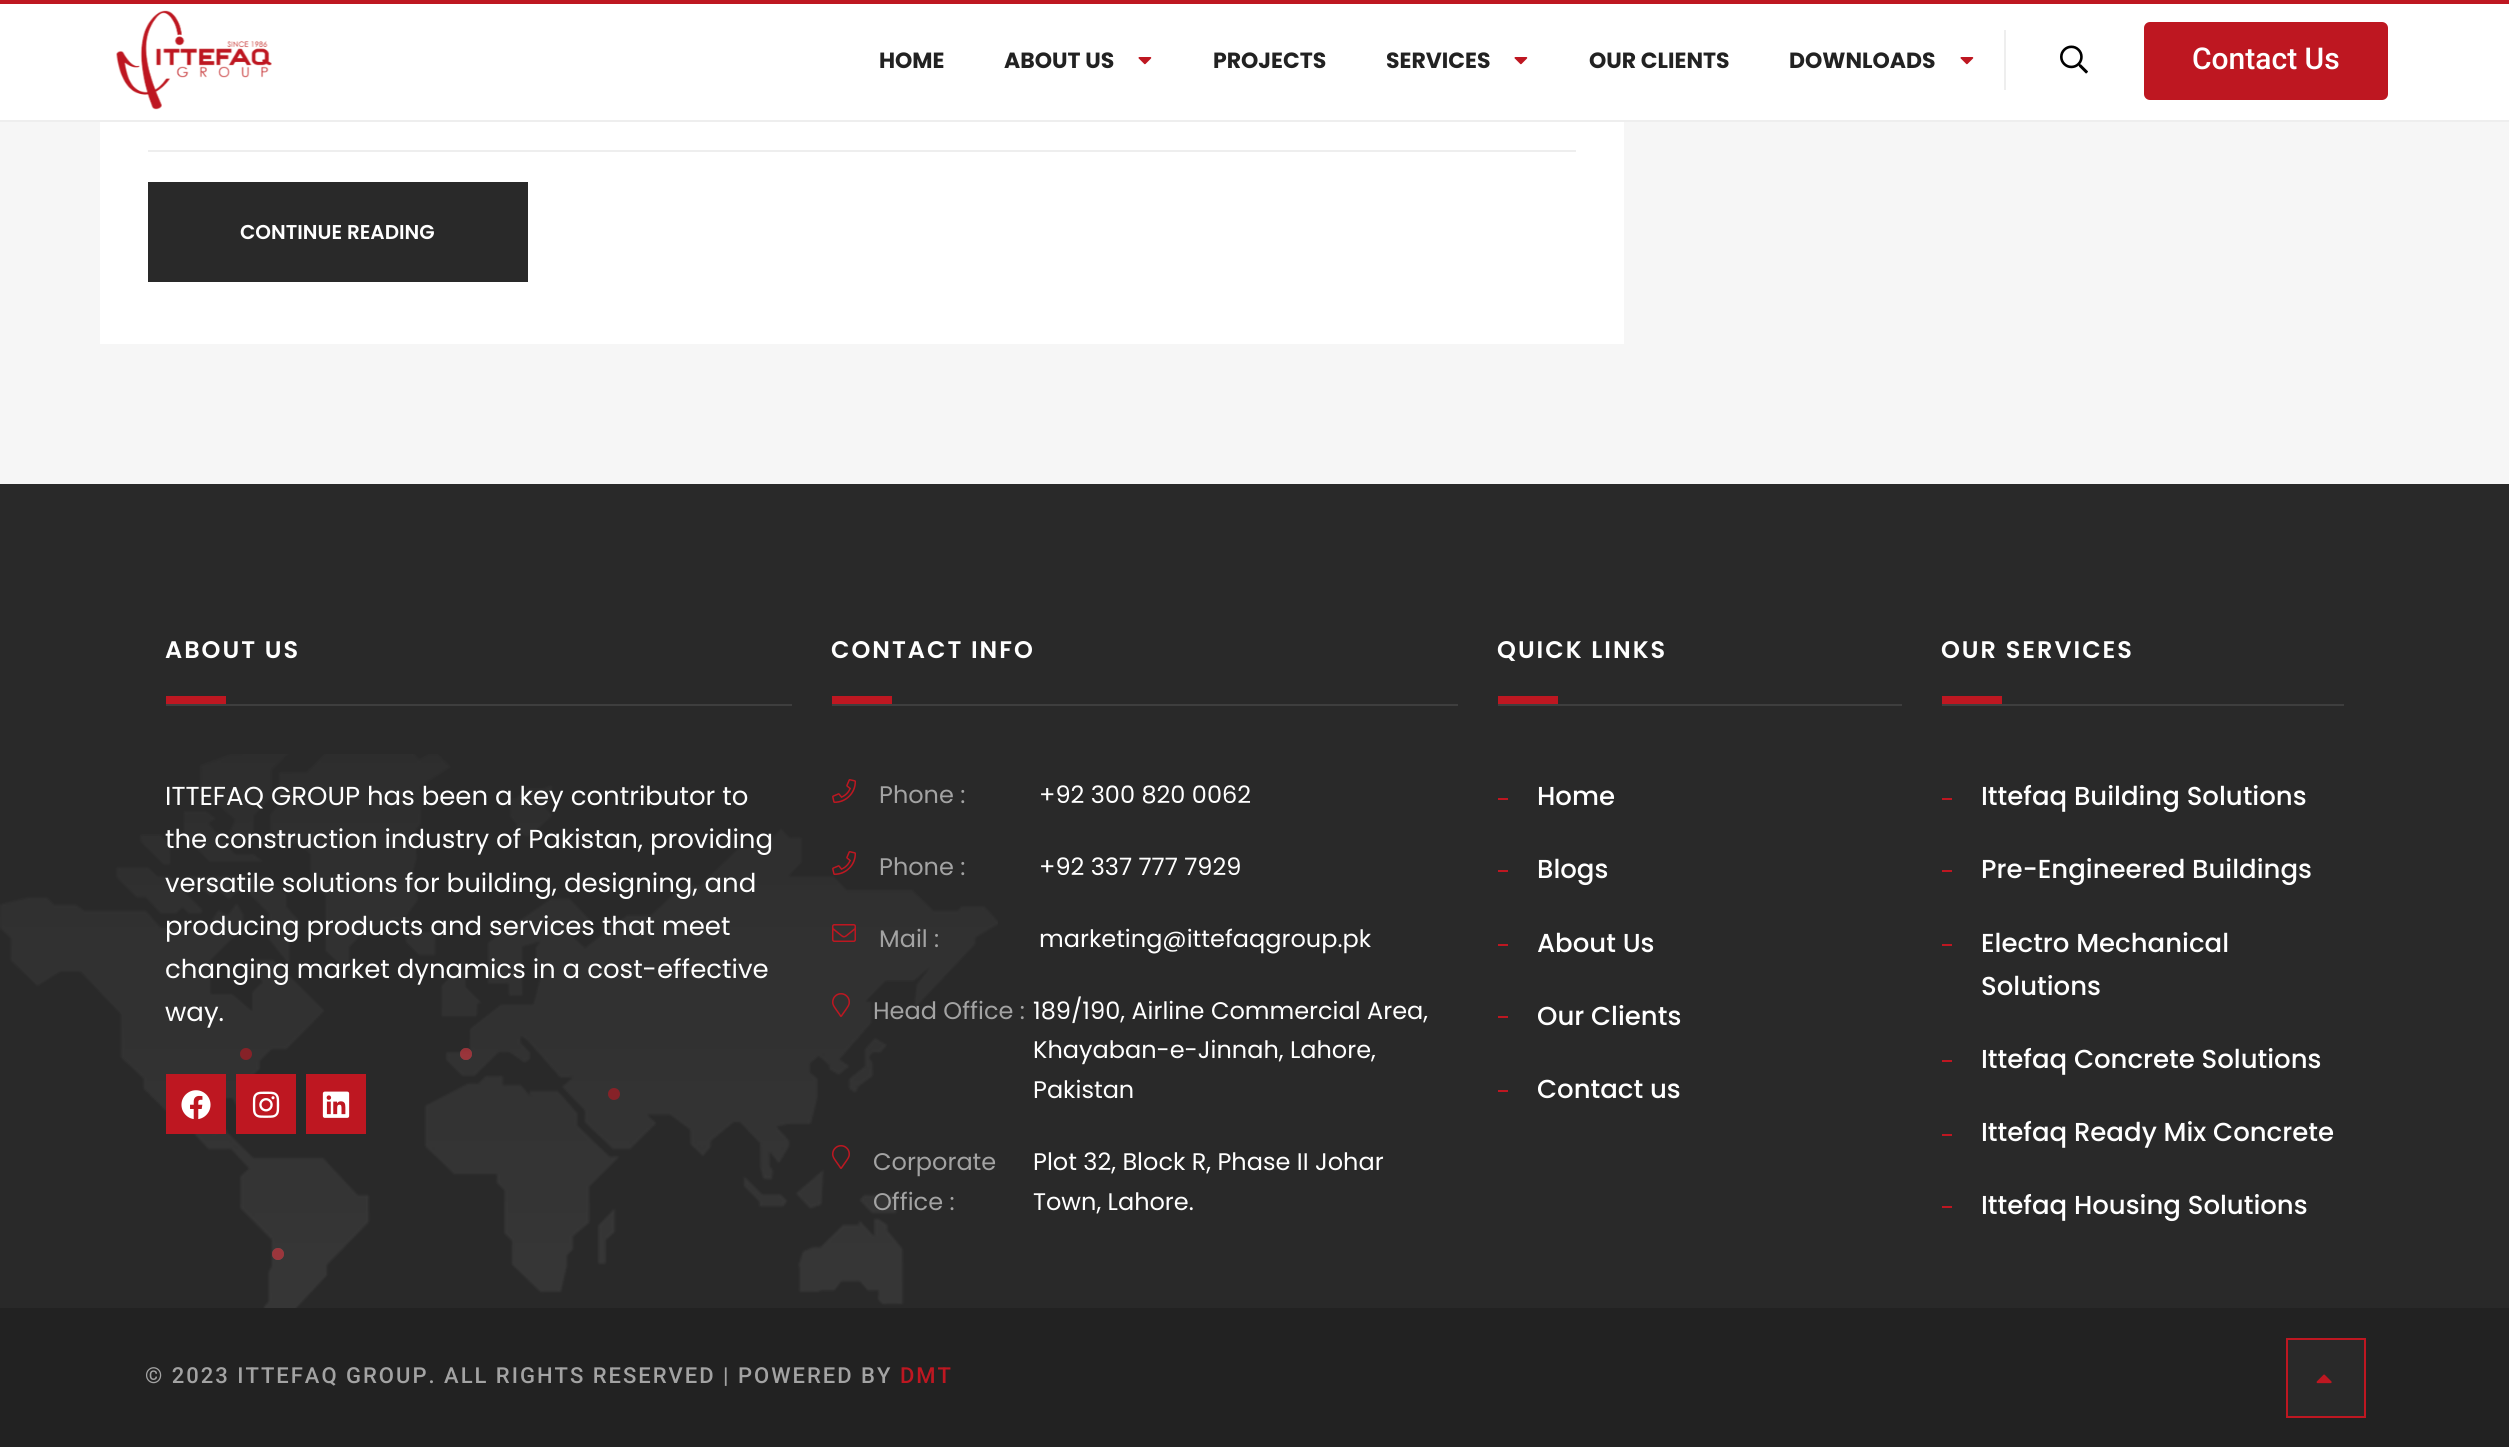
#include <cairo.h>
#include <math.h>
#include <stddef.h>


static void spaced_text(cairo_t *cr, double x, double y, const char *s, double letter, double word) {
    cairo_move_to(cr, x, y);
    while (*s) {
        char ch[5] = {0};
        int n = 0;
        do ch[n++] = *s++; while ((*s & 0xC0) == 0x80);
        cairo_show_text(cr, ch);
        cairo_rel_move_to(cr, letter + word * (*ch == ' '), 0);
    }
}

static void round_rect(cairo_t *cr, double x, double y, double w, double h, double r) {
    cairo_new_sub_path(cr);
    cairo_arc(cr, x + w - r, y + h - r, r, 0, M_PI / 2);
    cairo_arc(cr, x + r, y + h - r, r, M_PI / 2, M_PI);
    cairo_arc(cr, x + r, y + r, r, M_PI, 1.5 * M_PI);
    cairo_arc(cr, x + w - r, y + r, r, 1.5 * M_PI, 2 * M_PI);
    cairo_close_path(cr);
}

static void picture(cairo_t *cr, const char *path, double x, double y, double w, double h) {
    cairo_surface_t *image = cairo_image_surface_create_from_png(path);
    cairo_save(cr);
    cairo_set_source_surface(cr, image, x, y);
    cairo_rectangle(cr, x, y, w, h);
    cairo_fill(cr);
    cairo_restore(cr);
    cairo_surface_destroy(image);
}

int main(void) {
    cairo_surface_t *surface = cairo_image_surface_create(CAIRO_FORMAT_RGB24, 2509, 1447);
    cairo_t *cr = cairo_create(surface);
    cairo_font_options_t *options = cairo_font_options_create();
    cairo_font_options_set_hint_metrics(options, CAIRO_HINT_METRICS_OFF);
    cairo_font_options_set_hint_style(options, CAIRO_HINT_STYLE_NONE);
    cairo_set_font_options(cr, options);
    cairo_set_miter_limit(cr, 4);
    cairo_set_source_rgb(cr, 0.161, 0.161, 0.161);
    cairo_paint(cr);
    cairo_set_source_rgb(cr, 0.745, 0.09, 0.129);
    cairo_rectangle(cr, 0, 0, 2509, 4);
    cairo_fill(cr);
    cairo_set_source_rgb(cr, 1, 1, 1);
    cairo_rectangle(cr, 0, 4, 2509, 116);
    cairo_fill(cr);
    cairo_set_source_rgb(cr, 0.933, 0.933, 0.933);
    cairo_rectangle(cr, 0, 120, 2509, 2);
    cairo_fill(cr);
    picture(cr, "img1.png", 116, 10, 156, 100);
    cairo_select_font_face(cr, "Poppins", CAIRO_FONT_SLANT_NORMAL, CAIRO_FONT_WEIGHT_BOLD);
    cairo_set_font_size(cr, 22);
    cairo_set_source_rgb(cr, 0.133, 0.133, 0.133);
    cairo_move_to(cr, 879, 68);
    cairo_show_text(cr, "HOME");
    cairo_move_to(cr, 1004, 68);
    cairo_show_text(cr, "ABOUT US");
    picture(cr, "img2.png", 1138, 57, 14, 8);
    cairo_move_to(cr, 1213, 68);
    cairo_show_text(cr, "PROJECTS");
    cairo_move_to(cr, 1386, 68);
    cairo_show_text(cr, "SERVICES");
    picture(cr, "img2.png", 1514, 57, 14, 8);
    cairo_move_to(cr, 1589, 68);
    cairo_show_text(cr, "OUR CLIENTS");
    cairo_move_to(cr, 1789, 68);
    cairo_show_text(cr, "DOWNLOADS");
    picture(cr, "img2.png", 1960, 57, 14, 8);
    cairo_set_source_rgb(cr, 0.933, 0.933, 0.933);
    cairo_rectangle(cr, 2004, 30, 2, 60);
    cairo_fill(cr);
    picture(cr, "img3.png", 2060, 45, 28, 29);
    cairo_set_source_rgb(cr, 0.745, 0.09, 0.129);
    round_rect(cr, 2144, 22, 244, 78, 6);
    cairo_fill(cr);
    cairo_select_font_face(cr, "Roboto Medium", CAIRO_FONT_SLANT_NORMAL, CAIRO_FONT_WEIGHT_NORMAL);
    cairo_set_font_size(cr, 30);
    cairo_set_source_rgb(cr, 1, 1, 1);
    cairo_move_to(cr, 2192, 69);
    cairo_show_text(cr, "Contact Us");
    cairo_set_source_rgb(cr, 0.961, 0.961, 0.961);
    cairo_rectangle(cr, 0, 122, 2509, 362);
    cairo_fill(cr);
    cairo_set_source_rgb(cr, 1, 1, 1);
    cairo_rectangle(cr, 100, 122, 1524, 222);
    cairo_fill(cr);
    cairo_set_source_rgb(cr, 0.933, 0.933, 0.933);
    cairo_rectangle(cr, 148, 150, 1428, 2);
    cairo_fill(cr);
    cairo_set_source_rgb(cr, 0.161, 0.161, 0.161);
    cairo_rectangle(cr, 148, 182, 380, 100);
    cairo_fill(cr);
    cairo_select_font_face(cr, "Poppins SemiBold", CAIRO_FONT_SLANT_NORMAL, CAIRO_FONT_WEIGHT_NORMAL);
    cairo_set_font_size(cr, 20);
    cairo_set_source_rgb(cr, 1, 1, 1);
    cairo_move_to(cr, 240, 239);
    cairo_show_text(cr, "CONTINUE READING");
    cairo_set_font_size(cr, 24);
    spaced_text(cr, 165, 658, "ABOUT US", 2, 0);
    cairo_set_source_rgb(cr, 0.745, 0.09, 0.129);
    cairo_rectangle(cr, 166, 696, 60, 8);
    cairo_fill(cr);
    cairo_set_source_rgb(cr, 0.243, 0.243, 0.243);
    cairo_rectangle(cr, 166, 704, 626, 2);
    cairo_fill(cr);
    picture(cr, "img11.png", 0, 754, 998, 554);
    cairo_select_font_face(cr, "Poppins", CAIRO_FONT_SLANT_NORMAL, CAIRO_FONT_WEIGHT_NORMAL);
    cairo_set_font_size(cr, 26);
    cairo_set_source_rgb(cr, 1, 1, 1);
    cairo_move_to(cr, 165, 805);
    cairo_show_text(cr, "ITTEFAQ GROUP has been a key contributor to");
    cairo_move_to(cr, 165, 848);
    cairo_show_text(cr, "the construction industry of Pakistan, providing");
    cairo_move_to(cr, 165, 892);
    cairo_show_text(cr, "versatile solutions for building, designing, and");
    cairo_move_to(cr, 165, 935);
    cairo_show_text(cr, "producing products and services that meet");
    cairo_move_to(cr, 165, 978);
    cairo_show_text(cr, "changing market dynamics in a cost-effective");
    cairo_move_to(cr, 165, 1021);
    cairo_show_text(cr, "way.");
    cairo_set_source_rgb(cr, 0.745, 0.09, 0.129);
    cairo_rectangle(cr, 166, 1074, 60, 60);
    cairo_fill(cr);
    picture(cr, "img4.png", 181, 1090, 30, 30);
    cairo_rectangle(cr, 236, 1074, 60, 60);
    cairo_fill(cr);
    picture(cr, "img5.png", 252, 1091, 28, 27);
    cairo_rectangle(cr, 306, 1074, 60, 60);
    cairo_fill(cr);
    picture(cr, "img6.png", 322, 1091, 28, 27);
    cairo_select_font_face(cr, "Poppins SemiBold", CAIRO_FONT_SLANT_NORMAL, CAIRO_FONT_WEIGHT_NORMAL);
    cairo_set_font_size(cr, 24);
    cairo_set_source_rgb(cr, 1, 1, 1);
    spaced_text(cr, 831, 658, "CONTACT INFO", 2, 0);
    cairo_set_source_rgb(cr, 0.745, 0.09, 0.129);
    cairo_rectangle(cr, 832, 696, 60, 8);
    cairo_fill(cr);
    cairo_set_source_rgb(cr, 0.243, 0.243, 0.243);
    cairo_rectangle(cr, 832, 704, 626, 2);
    cairo_fill(cr);
    picture(cr, "img7.png", 832, 779, 24, 24);
    cairo_select_font_face(cr, "Poppins", CAIRO_FONT_SLANT_NORMAL, CAIRO_FONT_WEIGHT_NORMAL);
    cairo_set_source_rgb(cr, 0.639, 0.639, 0.639);
    cairo_move_to(cr, 879, 803);
    cairo_show_text(cr, "Phone :");
    cairo_set_source_rgb(cr, 1, 1, 1);
    cairo_move_to(cr, 1039, 803);
    cairo_show_text(cr, "+92 300 820 0062");
    picture(cr, "img7.png", 832, 851, 24, 24);
    cairo_set_source_rgb(cr, 0.639, 0.639, 0.639);
    cairo_move_to(cr, 879, 875);
    cairo_show_text(cr, "Phone :");
    cairo_set_source_rgb(cr, 1, 1, 1);
    cairo_move_to(cr, 1039, 875);
    cairo_show_text(cr, "+92 337 777 7929");
    picture(cr, "img8.png", 832, 924, 24, 18);
    cairo_set_source_rgb(cr, 0.639, 0.639, 0.639);
    cairo_move_to(cr, 879, 947);
    cairo_show_text(cr, "Mail :");
    cairo_set_source_rgb(cr, 1, 1, 1);
    cairo_move_to(cr, 1039, 947);
    cairo_show_text(cr, "marketing@ittefaqgroup.pk");
    picture(cr, "img9.png", 832, 993, 18, 24);
    cairo_set_source_rgb(cr, 0.639, 0.639, 0.639);
    cairo_move_to(cr, 873, 1019);
    cairo_show_text(cr, "Head Office :");
    cairo_set_source_rgb(cr, 1, 1, 1);
    cairo_move_to(cr, 1033, 1019);
    cairo_show_text(cr, "189/190, Airline Commercial Area,");
    cairo_move_to(cr, 1033, 1058);
    cairo_show_text(cr, "Khayaban-e-Jinnah, Lahore,");
    cairo_move_to(cr, 1033, 1098);
    cairo_show_text(cr, "Pakistan");
    picture(cr, "img10.png", 832, 1145, 18, 24);
    cairo_set_source_rgb(cr, 0.639, 0.639, 0.639);
    cairo_move_to(cr, 873, 1170);
    cairo_show_text(cr, "Corporate");
    cairo_move_to(cr, 873, 1210);
    cairo_show_text(cr, "Office :");
    cairo_set_source_rgb(cr, 1, 1, 1);
    cairo_move_to(cr, 1033, 1170);
    cairo_show_text(cr, "Plot 32, Block R, Phase II Johar");
    cairo_move_to(cr, 1033, 1210);
    cairo_show_text(cr, "Town, Lahore.");
    cairo_select_font_face(cr, "Poppins SemiBold", CAIRO_FONT_SLANT_NORMAL, CAIRO_FONT_WEIGHT_NORMAL);
    spaced_text(cr, 1497, 658, "QUICK LINKS", 2, 0);
    cairo_set_source_rgb(cr, 0.745, 0.09, 0.129);
    cairo_rectangle(cr, 1498, 696, 60, 8);
    cairo_fill(cr);
    cairo_set_source_rgb(cr, 0.243, 0.243, 0.243);
    cairo_rectangle(cr, 1498, 704, 404, 2);
    cairo_fill(cr);
    cairo_set_source_rgb(cr, 0.745, 0.09, 0.129);
    cairo_rectangle(cr, 1498, 798, 10, 2);
    cairo_fill(cr);
    cairo_select_font_face(cr, "Poppins Medium", CAIRO_FONT_SLANT_NORMAL, CAIRO_FONT_WEIGHT_NORMAL);
    cairo_set_font_size(cr, 26);
    cairo_set_source_rgb(cr, 1, 1, 1);
    cairo_move_to(cr, 1537, 805);
    cairo_show_text(cr, "Home");
    cairo_set_source_rgb(cr, 0.745, 0.09, 0.129);
    cairo_rectangle(cr, 1498, 870, 10, 2);
    cairo_fill(cr);
    cairo_set_source_rgb(cr, 1, 1, 1);
    cairo_move_to(cr, 1537, 878);
    cairo_show_text(cr, "Blogs");
    cairo_set_source_rgb(cr, 0.745, 0.09, 0.129);
    cairo_rectangle(cr, 1498, 944, 10, 2);
    cairo_fill(cr);
    cairo_set_source_rgb(cr, 1, 1, 1);
    cairo_move_to(cr, 1537, 952);
    cairo_show_text(cr, "About Us");
    cairo_set_source_rgb(cr, 0.745, 0.09, 0.129);
    cairo_rectangle(cr, 1498, 1016, 10, 2);
    cairo_fill(cr);
    cairo_set_source_rgb(cr, 1, 1, 1);
    cairo_move_to(cr, 1537, 1025);
    cairo_show_text(cr, "Our Clients");
    cairo_set_source_rgb(cr, 0.745, 0.09, 0.129);
    cairo_rectangle(cr, 1498, 1090, 10, 2);
    cairo_fill(cr);
    cairo_set_source_rgb(cr, 1, 1, 1);
    cairo_move_to(cr, 1537, 1098);
    cairo_show_text(cr, "Contact us");
    cairo_select_font_face(cr, "Poppins SemiBold", CAIRO_FONT_SLANT_NORMAL, CAIRO_FONT_WEIGHT_NORMAL);
    cairo_set_font_size(cr, 24);
    spaced_text(cr, 1941, 658, "OUR SERVICES", 2, 0);
    cairo_set_source_rgb(cr, 0.745, 0.09, 0.129);
    cairo_rectangle(cr, 1942, 696, 60, 8);
    cairo_fill(cr);
    cairo_set_source_rgb(cr, 0.243, 0.243, 0.243);
    cairo_rectangle(cr, 1942, 704, 402, 2);
    cairo_fill(cr);
    cairo_set_source_rgb(cr, 0.745, 0.09, 0.129);
    cairo_rectangle(cr, 1942, 798, 10, 2);
    cairo_fill(cr);
    cairo_select_font_face(cr, "Poppins Medium", CAIRO_FONT_SLANT_NORMAL, CAIRO_FONT_WEIGHT_NORMAL);
    cairo_set_font_size(cr, 26);
    cairo_set_source_rgb(cr, 1, 1, 1);
    cairo_move_to(cr, 1981, 805);
    cairo_show_text(cr, "Ittefaq Building Solutions");
    cairo_set_source_rgb(cr, 0.745, 0.09, 0.129);
    cairo_rectangle(cr, 1942, 870, 10, 2);
    cairo_fill(cr);
    cairo_set_source_rgb(cr, 1, 1, 1);
    cairo_move_to(cr, 1981, 878);
    cairo_show_text(cr, "Pre-Engineered Buildings");
    cairo_set_source_rgb(cr, 0.745, 0.09, 0.129);
    cairo_rectangle(cr, 1942, 944, 10, 2);
    cairo_fill(cr);
    cairo_set_source_rgb(cr, 1, 1, 1);
    cairo_move_to(cr, 1981, 952);
    cairo_show_text(cr, "Electro Mechanical");
    cairo_move_to(cr, 1981, 995);
    cairo_show_text(cr, "Solutions");
    cairo_set_source_rgb(cr, 0.745, 0.09, 0.129);
    cairo_rectangle(cr, 1942, 1060, 10, 2);
    cairo_fill(cr);
    cairo_set_source_rgb(cr, 1, 1, 1);
    cairo_move_to(cr, 1981, 1068);
    cairo_show_text(cr, "Ittefaq Concrete Solutions");
    cairo_set_source_rgb(cr, 0.745, 0.09, 0.129);
    cairo_rectangle(cr, 1942, 1134, 10, 2);
    cairo_fill(cr);
    cairo_set_source_rgb(cr, 1, 1, 1);
    cairo_move_to(cr, 1981, 1141);
    cairo_show_text(cr, "Ittefaq Ready Mix Concrete");
    cairo_set_source_rgb(cr, 0.745, 0.09, 0.129);
    cairo_rectangle(cr, 1942, 1206, 10, 2);
    cairo_fill(cr);
    cairo_set_source_rgb(cr, 1, 1, 1);
    cairo_move_to(cr, 1981, 1214);
    cairo_show_text(cr, "Ittefaq Housing Solutions");
    cairo_set_source_rgb(cr, 0.525, 0.133, 0.157);
    cairo_new_path(cr);
    cairo_arc(cr, 246, 1054, 6, 0, 2 * M_PI);
    cairo_fill(cr);
    cairo_set_source_rgba(cr, 1, 1, 1, 0.24);
    cairo_arc(cr, 466, 1054, 6, 0, 2 * M_PI);
    cairo_fill(cr);
    cairo_set_source_rgba(cr, 0.745, 0.09, 0.129, 0.6);
    cairo_arc(cr, 466, 1054, 6, 0, 2 * M_PI);
    cairo_fill(cr);
    cairo_set_source_rgb(cr, 0.525, 0.133, 0.157);
    cairo_arc(cr, 614, 1094, 6, 0, 2 * M_PI);
    cairo_fill(cr);
    cairo_set_source_rgba(cr, 1, 1, 1, 0.24);
    cairo_arc(cr, 278, 1254, 6, 0, 2 * M_PI);
    cairo_fill(cr);
    cairo_set_source_rgba(cr, 0.745, 0.09, 0.129, 0.6);
    cairo_arc(cr, 278, 1254, 6, 0, 2 * M_PI);
    cairo_fill(cr);
    cairo_set_source_rgb(cr, 0.133, 0.133, 0.133);
    cairo_rectangle(cr, 0, 1308, 2509, 139);
    cairo_fill(cr);
    cairo_select_font_face(cr, "Roboto Medium", CAIRO_FONT_SLANT_NORMAL, CAIRO_FONT_WEIGHT_NORMAL);
    cairo_set_font_size(cr, 22);
    cairo_set_source_rgb(cr, 0.639, 0.639, 0.639);
    spaced_text(cr, 145, 1383, "© 2023 ITTEFAQ GROUP. ALL RIGHTS RESERVED | POWERED BY", 2, 0);
    cairo_set_source_rgb(cr, 0.745, 0.09, 0.129);
    spaced_text(cr, 900, 1383, "DMT", 2, 0);
    cairo_set_source_rgb(cr, 0.161, 0.161, 0.161);
    cairo_rectangle(cr, 2287, 1339, 78, 78);
    cairo_fill_preserve(cr);
    cairo_set_source_rgb(cr, 0.745, 0.09, 0.129);
    cairo_stroke(cr);
    picture(cr, "img12.png", 2316, 1374, 16, 10);
    cairo_surface_write_to_png(surface, "page.png");
    cairo_font_options_destroy(options);
    cairo_destroy(cr);
    cairo_surface_destroy(surface);
    return 0;
}
